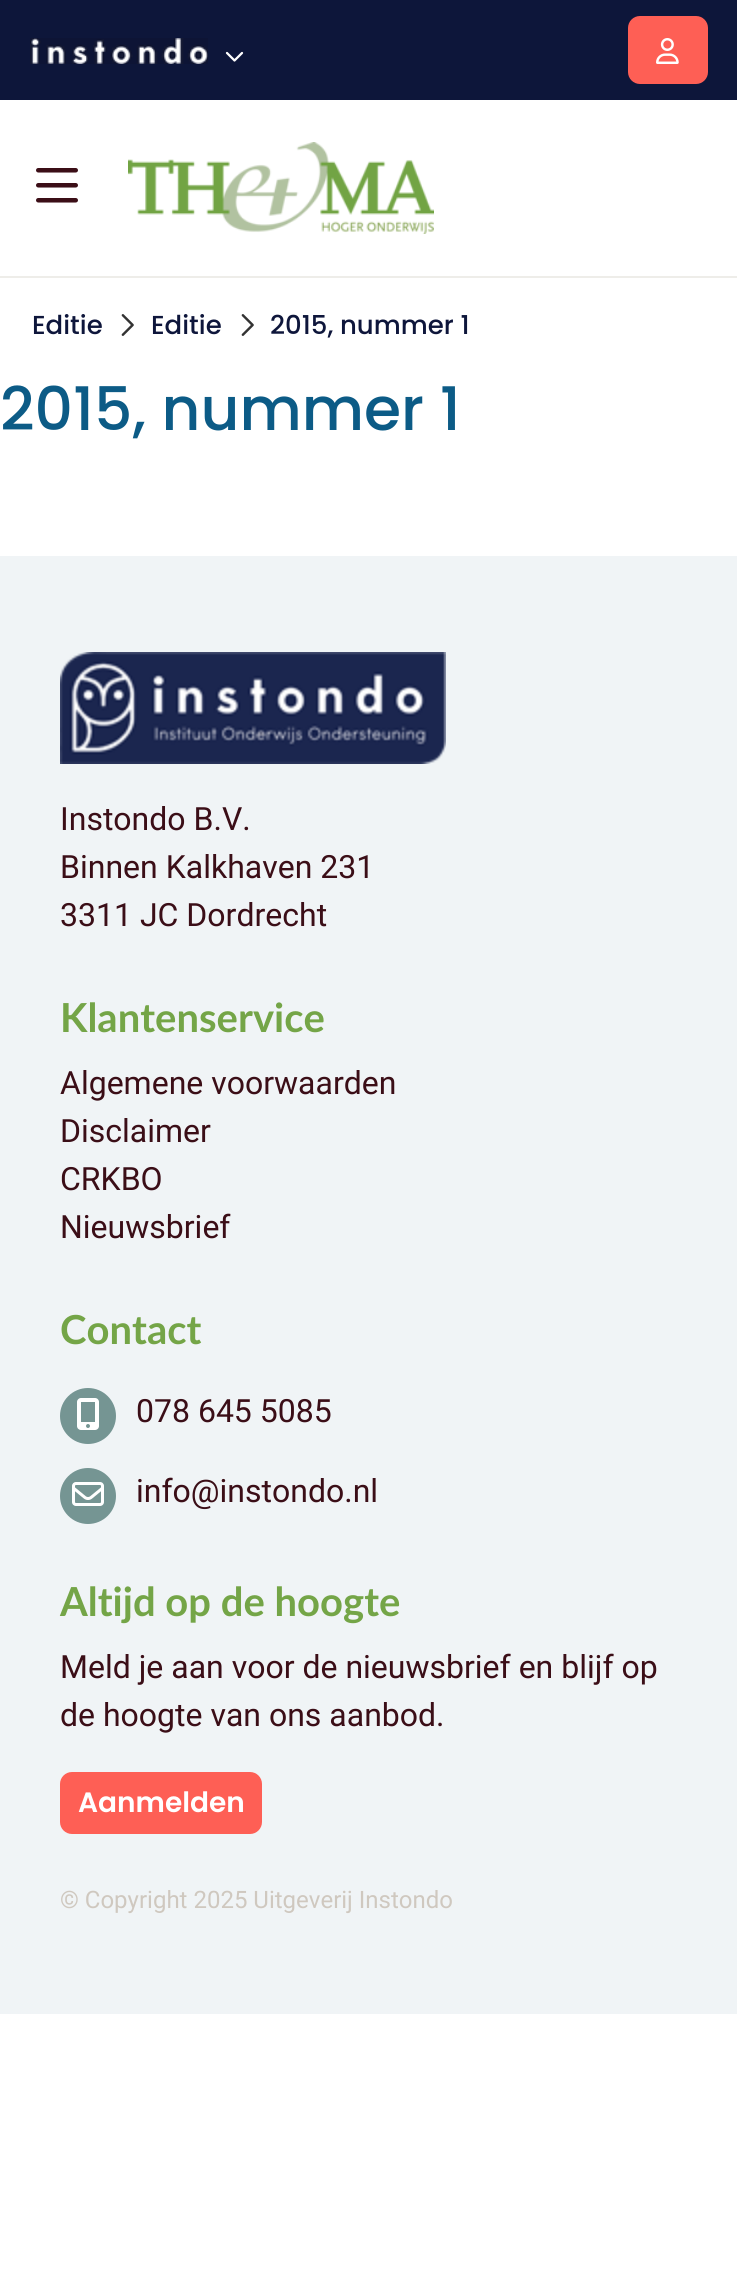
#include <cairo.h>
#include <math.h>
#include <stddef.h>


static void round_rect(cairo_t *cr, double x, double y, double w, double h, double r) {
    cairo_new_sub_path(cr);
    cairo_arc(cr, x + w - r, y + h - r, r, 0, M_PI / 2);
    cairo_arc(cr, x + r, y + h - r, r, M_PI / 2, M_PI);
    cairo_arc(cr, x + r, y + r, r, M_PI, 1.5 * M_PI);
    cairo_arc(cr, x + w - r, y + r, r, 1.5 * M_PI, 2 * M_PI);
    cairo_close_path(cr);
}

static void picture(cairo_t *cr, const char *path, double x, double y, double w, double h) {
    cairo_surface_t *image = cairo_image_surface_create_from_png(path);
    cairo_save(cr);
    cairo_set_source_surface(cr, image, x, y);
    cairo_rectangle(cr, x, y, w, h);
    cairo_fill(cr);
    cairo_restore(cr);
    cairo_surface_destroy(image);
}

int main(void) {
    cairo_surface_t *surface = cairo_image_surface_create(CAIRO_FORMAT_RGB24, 737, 2276);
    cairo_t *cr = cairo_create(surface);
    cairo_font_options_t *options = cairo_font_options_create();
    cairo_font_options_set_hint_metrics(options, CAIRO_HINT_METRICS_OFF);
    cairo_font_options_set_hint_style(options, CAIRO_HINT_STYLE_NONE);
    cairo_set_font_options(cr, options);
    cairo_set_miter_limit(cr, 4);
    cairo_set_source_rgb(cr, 1, 1, 1);
    cairo_paint(cr);
    cairo_set_source_rgb(cr, 0.051, 0.086, 0.227);
    cairo_rectangle(cr, 0, 0, 737, 100);
    cairo_fill(cr);
    picture(cr, "img1.png", 30, 38, 178, 26);
    picture(cr, "img2.png", 225, 51, 19, 11);
    cairo_set_source_rgb(cr, 0.996, 0.373, 0.333);
    round_rect(cr, 629, 17, 78, 66, 11);
    cairo_fill_preserve(cr);
    cairo_stroke(cr);
    picture(cr, "img3.png", 656, 38, 23, 26);
    cairo_set_source_rgb(cr, 0.933, 0.929, 0.914);
    cairo_rectangle(cr, 0, 276, 737, 2);
    cairo_fill(cr);
    picture(cr, "img4.png", 36, 168, 42, 35);
    picture(cr, "img5.png", 128, 142, 306, 92);
    cairo_select_font_face(cr, "Poppins Medium", CAIRO_FONT_SLANT_NORMAL, CAIRO_FONT_WEIGHT_NORMAL);
    cairo_set_font_size(cr, 26);
    cairo_set_source_rgb(cr, 0.055, 0.086, 0.231);
    cairo_move_to(cr, 32, 334);
    cairo_show_text(cr, "Editie");
    picture(cr, "img6.png", 121, 314, 13, 22);
    cairo_move_to(cr, 151, 334);
    cairo_show_text(cr, "Editie");
    picture(cr, "img6.png", 241, 314, 13, 22);
    cairo_move_to(cr, 270, 334);
    cairo_show_text(cr, "2015, nummer 1");
    cairo_set_font_size(cr, 60);
    cairo_set_source_rgb(cr, 0.047, 0.357, 0.525);
    cairo_move_to(cr, 0, 430);
    cairo_show_text(cr, "2015, nummer 1");
    cairo_set_source_rgb(cr, 0.941, 0.957, 0.961);
    cairo_rectangle(cr, 0, 556, 737, 1458);
    cairo_fill(cr);
    picture(cr, "img7.png", 60, 652, 386, 112);
    cairo_select_font_face(cr, "Roboto", CAIRO_FONT_SLANT_NORMAL, CAIRO_FONT_WEIGHT_NORMAL);
    cairo_set_font_size(cr, 32);
    cairo_set_source_rgb(cr, 0.231, 0.055, 0.09);
    cairo_move_to(cr, 60, 830);
    cairo_show_text(cr, "Instondo B.V.");
    cairo_move_to(cr, 60, 878);
    cairo_show_text(cr, "Binnen Kalkhaven 231");
    cairo_move_to(cr, 60, 926);
    cairo_show_text(cr, "3311 JC Dordrecht");
    cairo_select_font_face(cr, "Lato", CAIRO_FONT_SLANT_NORMAL, CAIRO_FONT_WEIGHT_BOLD);
    cairo_set_font_size(cr, 40);
    cairo_set_source_rgb(cr, 0.455, 0.647, 0.278);
    cairo_move_to(cr, 60, 1032);
    cairo_show_text(cr, "Klantenservice");
    cairo_select_font_face(cr, "Roboto", CAIRO_FONT_SLANT_NORMAL, CAIRO_FONT_WEIGHT_NORMAL);
    cairo_set_font_size(cr, 32);
    cairo_set_source_rgb(cr, 0.231, 0.055, 0.09);
    cairo_move_to(cr, 60, 1094);
    cairo_show_text(cr, "Algemene voorwaarden");
    cairo_move_to(cr, 60, 1142);
    cairo_show_text(cr, "Disclaimer");
    cairo_move_to(cr, 60, 1190);
    cairo_show_text(cr, "CRKBO");
    cairo_move_to(cr, 60, 1238);
    cairo_show_text(cr, "Nieuwsbrief");
    cairo_select_font_face(cr, "Lato", CAIRO_FONT_SLANT_NORMAL, CAIRO_FONT_WEIGHT_BOLD);
    cairo_set_font_size(cr, 40);
    cairo_set_source_rgb(cr, 0.455, 0.647, 0.278);
    cairo_move_to(cr, 60, 1344);
    cairo_show_text(cr, "Contact");
    cairo_set_source_rgb(cr, 0.459, 0.584, 0.576);
    cairo_new_path(cr);
    cairo_arc(cr, 88, 1416, 28, 0, 2 * M_PI);
    cairo_fill(cr);
    picture(cr, "img8.png", 77, 1398, 22, 32);
    cairo_select_font_face(cr, "Roboto", CAIRO_FONT_SLANT_NORMAL, CAIRO_FONT_WEIGHT_NORMAL);
    cairo_set_font_size(cr, 32);
    cairo_set_source_rgb(cr, 0.231, 0.055, 0.09);
    cairo_move_to(cr, 136, 1422);
    cairo_show_text(cr, "078 645 5085");
    cairo_set_source_rgb(cr, 0.459, 0.584, 0.576);
    cairo_new_path(cr);
    cairo_arc(cr, 88, 1496, 28, 0, 2 * M_PI);
    cairo_fill(cr);
    picture(cr, "img9.png", 72, 1482, 32, 24);
    cairo_set_source_rgb(cr, 0.231, 0.055, 0.09);
    cairo_move_to(cr, 136, 1502);
    cairo_show_text(cr, "info@instondo.nl");
    cairo_select_font_face(cr, "Lato", CAIRO_FONT_SLANT_NORMAL, CAIRO_FONT_WEIGHT_BOLD);
    cairo_set_font_size(cr, 40);
    cairo_set_source_rgb(cr, 0.455, 0.647, 0.278);
    cairo_move_to(cr, 60, 1616);
    cairo_show_text(cr, "Altijd op de hoogte");
    cairo_select_font_face(cr, "Roboto", CAIRO_FONT_SLANT_NORMAL, CAIRO_FONT_WEIGHT_NORMAL);
    cairo_set_font_size(cr, 32);
    cairo_set_source_rgb(cr, 0.231, 0.055, 0.09);
    cairo_move_to(cr, 60, 1678);
    cairo_show_text(cr, "Meld je aan voor de nieuwsbrief en blijf op");
    cairo_move_to(cr, 60, 1726);
    cairo_show_text(cr, "de hoogte van ons aanbod.");
    cairo_set_source_rgb(cr, 0.996, 0.373, 0.333);
    round_rect(cr, 61, 1773, 200, 60, 11);
    cairo_fill_preserve(cr);
    cairo_stroke(cr);
    cairo_select_font_face(cr, "Poppins SemiBold", CAIRO_FONT_SLANT_NORMAL, CAIRO_FONT_WEIGHT_NORMAL);
    cairo_set_font_size(cr, 28);
    cairo_set_source_rgb(cr, 1, 1, 1);
    cairo_move_to(cr, 78, 1812);
    cairo_show_text(cr, "Aanmelden");
    cairo_select_font_face(cr, "Roboto", CAIRO_FONT_SLANT_NORMAL, CAIRO_FONT_WEIGHT_NORMAL);
    cairo_set_font_size(cr, 24);
    cairo_set_source_rgb(cr, 0.812, 0.784, 0.749);
    cairo_move_to(cr, 60, 1908);
    cairo_show_text(cr, "© Copyright 2025 Uitgeverij Instondo");
    cairo_surface_write_to_png(surface, "page.png");
    cairo_font_options_destroy(options);
    cairo_destroy(cr);
    cairo_surface_destroy(surface);
    return 0;
}
